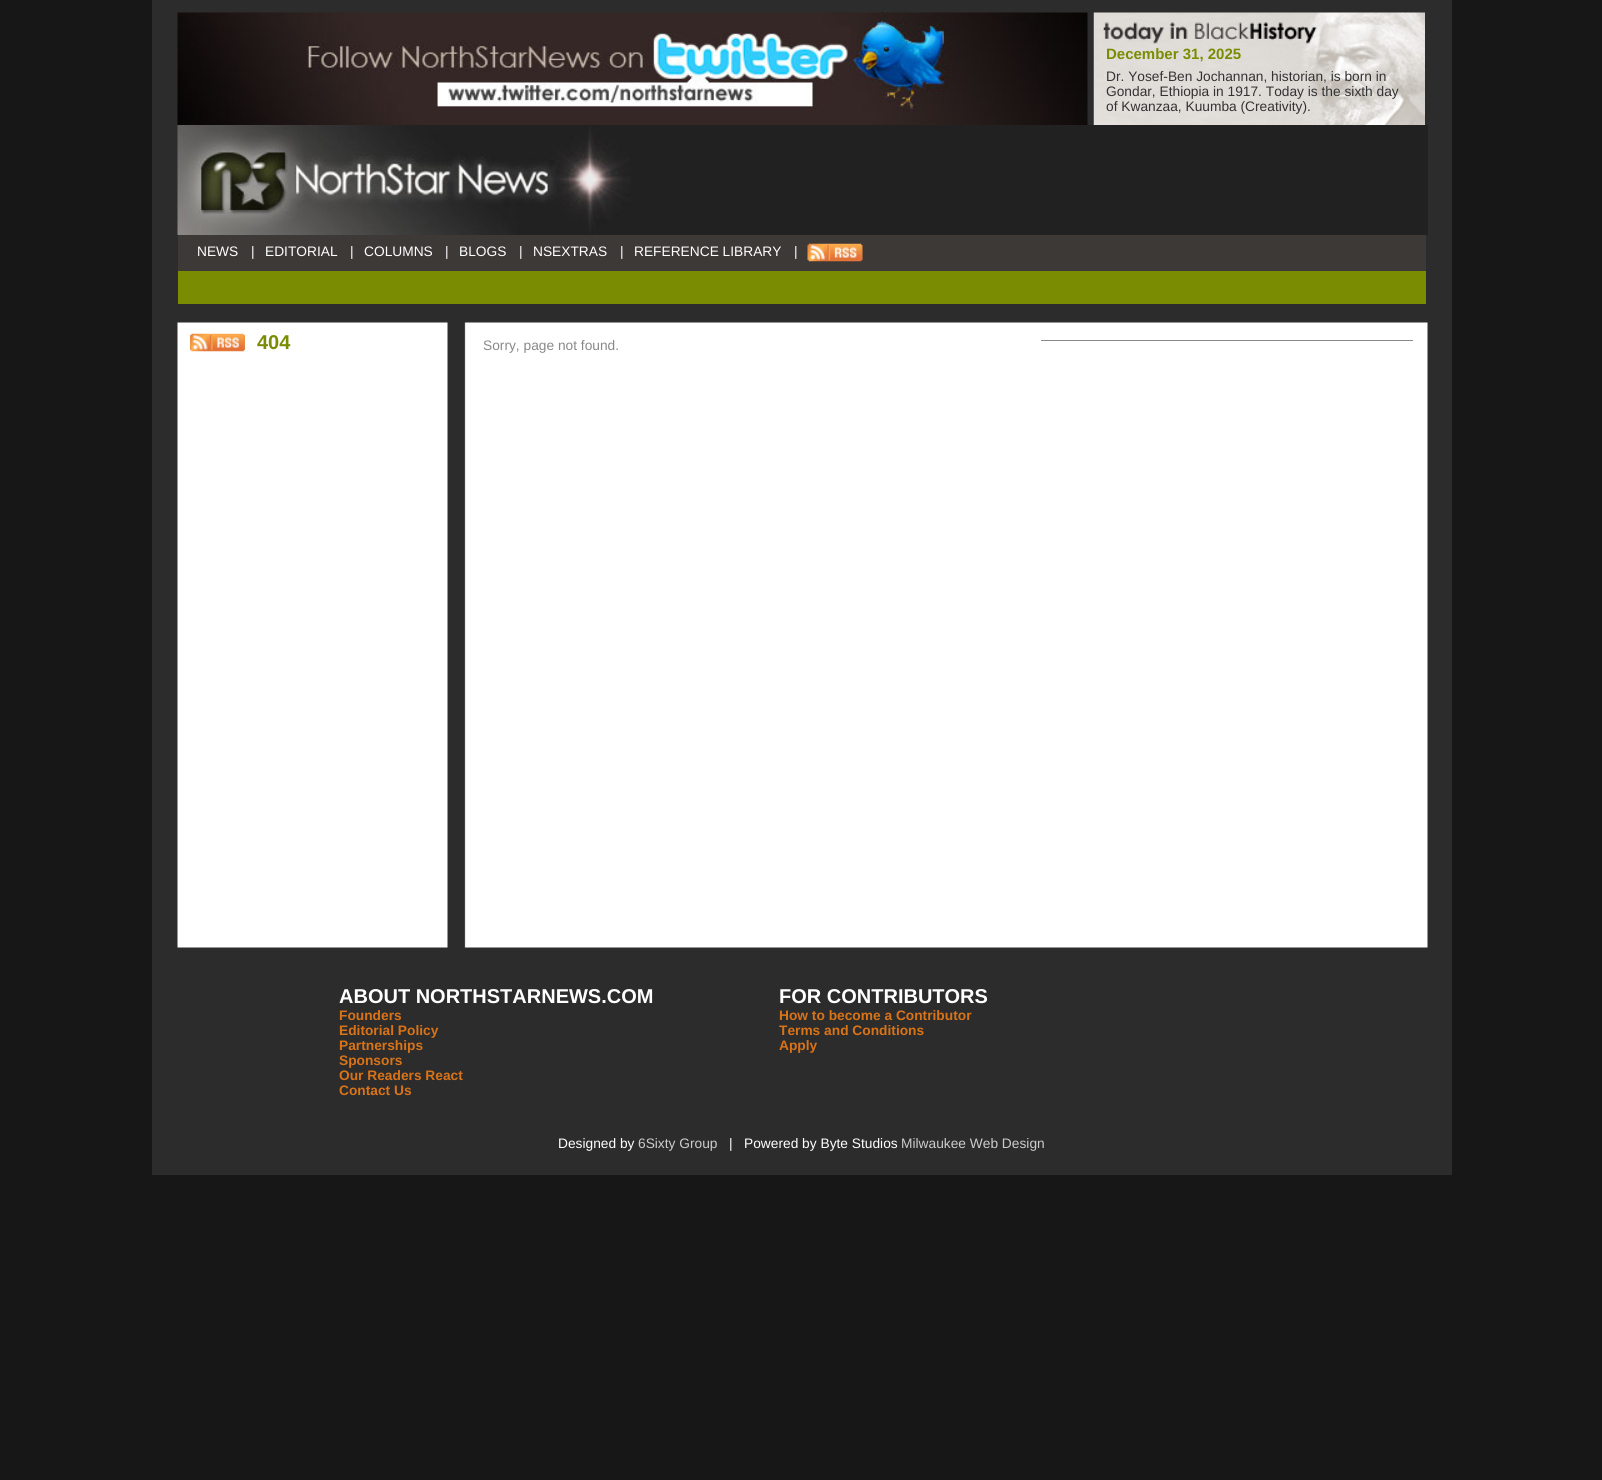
#include <cairo.h>
#include <math.h>
#include <stddef.h>


static void picture(cairo_t *cr, const char *path, double x, double y, double w, double h) {
    cairo_surface_t *image = cairo_image_surface_create_from_png(path);
    cairo_save(cr);
    cairo_set_source_surface(cr, image, x, y);
    cairo_rectangle(cr, x, y, w, h);
    cairo_fill(cr);
    cairo_restore(cr);
    cairo_surface_destroy(image);
}

int main(void) {
    cairo_surface_t *surface = cairo_image_surface_create(CAIRO_FORMAT_RGB24, 1602, 1480);
    cairo_t *cr = cairo_create(surface);
    cairo_font_options_t *options = cairo_font_options_create();
    cairo_font_options_set_hint_metrics(options, CAIRO_HINT_METRICS_OFF);
    cairo_font_options_set_hint_style(options, CAIRO_HINT_STYLE_NONE);
    cairo_set_font_options(cr, options);
    cairo_set_miter_limit(cr, 4);
    cairo_set_source_rgb(cr, 0.09, 0.09, 0.09);
    cairo_paint(cr);
    cairo_set_source_rgb(cr, 0.173, 0.173, 0.173);
    cairo_rectangle(cr, 152, 0, 1300, 1175);
    cairo_fill(cr);
    picture(cr, "img1.png", 177, 12, 911, 113);
    picture(cr, "img2.png", 1093, 12, 332, 113);
    cairo_select_font_face(cr, "Liberation Sans", CAIRO_FONT_SLANT_NORMAL, CAIRO_FONT_WEIGHT_BOLD);
    cairo_set_font_size(cr, 15);
    cairo_set_source_rgb(cr, 0.478, 0.549, 0.008);
    cairo_move_to(cr, 1106, 59);
    cairo_show_text(cr, "December 31, 2025");
    cairo_select_font_face(cr, "Liberation Sans", CAIRO_FONT_SLANT_NORMAL, CAIRO_FONT_WEIGHT_NORMAL);
    cairo_set_font_size(cr, 13.75);
    cairo_set_source_rgb(cr, 0.2, 0.2, 0.2);
    cairo_move_to(cr, 1106, 81);
    cairo_show_text(cr, "Dr. Yosef-Ben Jochannan, historian, is born in");
    cairo_move_to(cr, 1106, 96);
    cairo_show_text(cr, "Gondar, Ethiopia in 1917. Today is the sixth day");
    cairo_move_to(cr, 1106, 111);
    cairo_show_text(cr, "of Kwanzaa, Kuumba (Creativity).");
    cairo_set_source_rgb(cr, 0.129, 0.129, 0.129);
    cairo_rectangle(cr, 631, 125, 797, 110);
    cairo_fill(cr);
    picture(cr, "img3.png", 177, 125, 454, 110);
    cairo_set_source_rgb(cr, 0.239, 0.224, 0.216);
    cairo_rectangle(cr, 178, 235, 1248, 36);
    cairo_fill(cr);
    cairo_set_source_rgb(cr, 1, 1, 1);
    cairo_move_to(cr, 197, 256);
    cairo_show_text(cr, "NEWS");
    cairo_move_to(cr, 251, 256);
    cairo_show_text(cr, "|");
    cairo_move_to(cr, 265, 256);
    cairo_show_text(cr, "EDITORIAL");
    cairo_move_to(cr, 350, 256);
    cairo_show_text(cr, "|");
    cairo_move_to(cr, 364, 256);
    cairo_show_text(cr, "COLUMNS");
    cairo_move_to(cr, 445, 256);
    cairo_show_text(cr, "|");
    cairo_move_to(cr, 459, 256);
    cairo_show_text(cr, "BLOGS");
    cairo_move_to(cr, 519, 256);
    cairo_show_text(cr, "|");
    cairo_move_to(cr, 533, 256);
    cairo_show_text(cr, "NSEXTRAS");
    cairo_move_to(cr, 620, 256);
    cairo_show_text(cr, "|");
    cairo_move_to(cr, 634, 256);
    cairo_show_text(cr, "REFERENCE LIBRARY");
    cairo_move_to(cr, 794, 256);
    cairo_show_text(cr, "|");
    picture(cr, "img4.png", 807, 243, 56, 19);
    cairo_set_source_rgb(cr, 0.478, 0.549, 0.008);
    cairo_rectangle(cr, 178, 271, 1248, 33);
    cairo_fill(cr);
    picture(cr, "img5.png", 177, 322, 1251, 626);
    picture(cr, "img6.png", 190, 333, 55, 19);
    cairo_select_font_face(cr, "Liberation Sans", CAIRO_FONT_SLANT_NORMAL, CAIRO_FONT_WEIGHT_BOLD);
    cairo_set_font_size(cr, 20);
    cairo_move_to(cr, 257, 349);
    cairo_show_text(cr, "404");
    cairo_select_font_face(cr, "Liberation Sans", CAIRO_FONT_SLANT_NORMAL, CAIRO_FONT_WEIGHT_NORMAL);
    cairo_set_font_size(cr, 13.75);
    cairo_set_source_rgb(cr, 0.537, 0.537, 0.537);
    cairo_move_to(cr, 483, 350);
    cairo_show_text(cr, "Sorry, page not found.");
    cairo_rectangle(cr, 1041, 340, 372, 1);
    cairo_fill(cr);
    cairo_select_font_face(cr, "Liberation Sans", CAIRO_FONT_SLANT_NORMAL, CAIRO_FONT_WEIGHT_BOLD);
    cairo_set_font_size(cr, 20);
    cairo_set_source_rgb(cr, 1, 1, 1);
    cairo_move_to(cr, 339, 1003);
    cairo_show_text(cr, "ABOUT NORTHSTARNEWS.COM");
    cairo_set_font_size(cr, 13.75);
    cairo_set_source_rgb(cr, 0.847, 0.451, 0.094);
    cairo_move_to(cr, 339, 1020);
    cairo_show_text(cr, "Founders");
    cairo_move_to(cr, 339, 1035);
    cairo_show_text(cr, "Editorial Policy");
    cairo_move_to(cr, 339, 1050);
    cairo_show_text(cr, "Partnerships");
    cairo_move_to(cr, 339, 1065);
    cairo_show_text(cr, "Sponsors");
    cairo_move_to(cr, 339, 1080);
    cairo_show_text(cr, "Our Readers React");
    cairo_move_to(cr, 339, 1095);
    cairo_show_text(cr, "Contact Us");
    cairo_set_font_size(cr, 20);
    cairo_set_source_rgb(cr, 1, 1, 1);
    cairo_move_to(cr, 779, 1003);
    cairo_show_text(cr, "FOR CONTRIBUTORS");
    cairo_set_font_size(cr, 13.75);
    cairo_set_source_rgb(cr, 0.847, 0.451, 0.094);
    cairo_move_to(cr, 779, 1020);
    cairo_show_text(cr, "How to become a Contributor");
    cairo_move_to(cr, 779, 1035);
    cairo_show_text(cr, "Terms and Conditions");
    cairo_move_to(cr, 779, 1050);
    cairo_show_text(cr, "Apply");
    cairo_select_font_face(cr, "Liberation Sans", CAIRO_FONT_SLANT_NORMAL, CAIRO_FONT_WEIGHT_NORMAL);
    cairo_set_source_rgb(cr, 1, 1, 1);
    cairo_move_to(cr, 558, 1148);
    cairo_show_text(cr, "Designed by");
    cairo_set_source_rgb(cr, 0.8, 0.8, 0.8);
    cairo_move_to(cr, 638, 1148);
    cairo_show_text(cr, "6Sixty Group");
    cairo_set_source_rgb(cr, 1, 1, 1);
    cairo_move_to(cr, 729, 1148);
    cairo_show_text(cr, "|   Powered by Byte Studios");
    cairo_set_source_rgb(cr, 0.8, 0.8, 0.8);
    cairo_move_to(cr, 901, 1148);
    cairo_show_text(cr, "Milwaukee Web Design");
    cairo_surface_write_to_png(surface, "page.png");
    cairo_font_options_destroy(options);
    cairo_destroy(cr);
    cairo_surface_destroy(surface);
    return 0;
}
